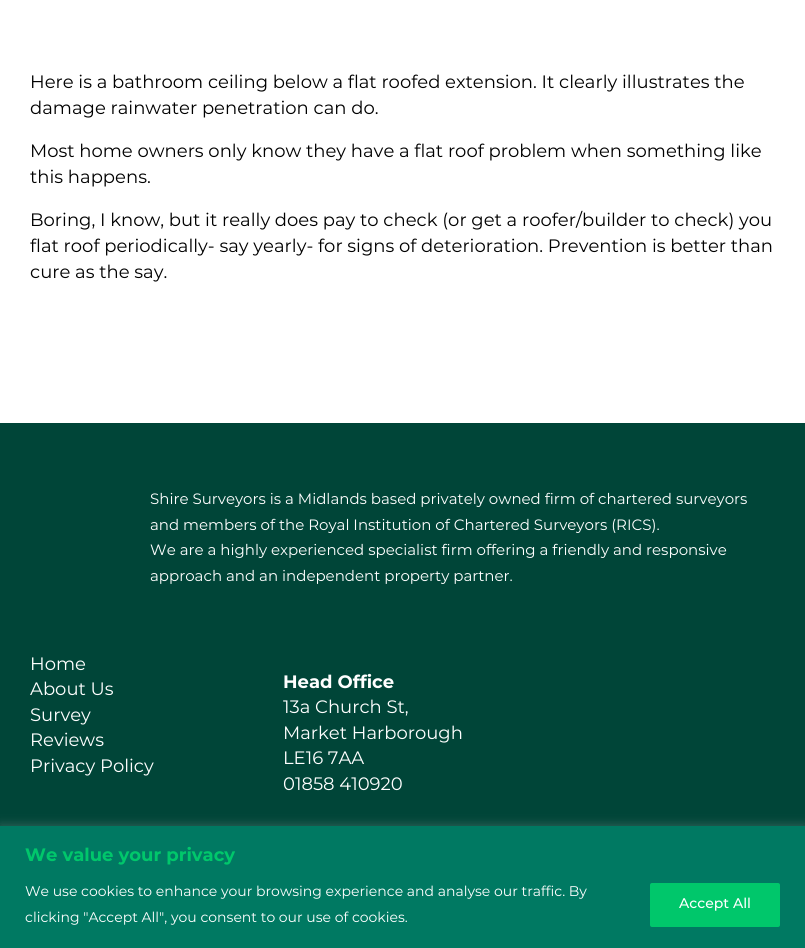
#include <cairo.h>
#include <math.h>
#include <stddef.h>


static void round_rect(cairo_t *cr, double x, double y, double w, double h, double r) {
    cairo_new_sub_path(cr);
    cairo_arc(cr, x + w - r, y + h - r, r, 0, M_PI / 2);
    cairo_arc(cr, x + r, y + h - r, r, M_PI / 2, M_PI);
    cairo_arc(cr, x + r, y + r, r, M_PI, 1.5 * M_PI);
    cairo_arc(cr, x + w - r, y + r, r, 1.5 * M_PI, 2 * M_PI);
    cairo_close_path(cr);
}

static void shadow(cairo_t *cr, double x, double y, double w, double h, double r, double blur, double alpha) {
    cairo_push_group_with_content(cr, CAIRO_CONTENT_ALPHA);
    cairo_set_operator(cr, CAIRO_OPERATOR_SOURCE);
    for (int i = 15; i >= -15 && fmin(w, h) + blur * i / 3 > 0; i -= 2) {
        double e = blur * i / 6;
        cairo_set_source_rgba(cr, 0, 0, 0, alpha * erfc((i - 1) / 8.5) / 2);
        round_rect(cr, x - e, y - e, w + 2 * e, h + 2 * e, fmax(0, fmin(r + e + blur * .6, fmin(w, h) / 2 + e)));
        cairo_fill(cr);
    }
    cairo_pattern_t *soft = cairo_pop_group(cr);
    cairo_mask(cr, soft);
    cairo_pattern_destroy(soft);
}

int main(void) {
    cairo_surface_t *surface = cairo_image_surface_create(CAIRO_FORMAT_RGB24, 805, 948);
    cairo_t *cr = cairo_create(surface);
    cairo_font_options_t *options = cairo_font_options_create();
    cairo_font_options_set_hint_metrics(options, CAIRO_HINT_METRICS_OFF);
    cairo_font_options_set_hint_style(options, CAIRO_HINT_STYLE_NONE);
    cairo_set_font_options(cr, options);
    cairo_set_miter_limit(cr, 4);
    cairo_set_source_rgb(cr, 1, 1, 1);
    cairo_paint(cr);
    cairo_select_font_face(cr, "Montserrat", CAIRO_FONT_SLANT_NORMAL, CAIRO_FONT_WEIGHT_NORMAL);
    cairo_set_font_size(cr, 18);
    cairo_set_source_rgb(cr, 0, 0, 0);
    cairo_move_to(cr, 30, 88);
    cairo_show_text(cr, "Here is a bathroom ceiling below a flat roofed extension. It clearly illustrates the");
    cairo_move_to(cr, 30, 114);
    cairo_show_text(cr, "damage rainwater penetration can do.");
    cairo_move_to(cr, 30, 157);
    cairo_show_text(cr, "Most home owners only know they have a flat roof problem when something like");
    cairo_move_to(cr, 30, 183);
    cairo_show_text(cr, "this happens.");
    cairo_move_to(cr, 30, 226);
    cairo_show_text(cr, "Boring, I know, but it really does pay to check (or get a roofer/builder to check) you");
    cairo_move_to(cr, 30, 252);
    cairo_show_text(cr, "flat roof periodically- say yearly- for signs of deterioration. Prevention is better than");
    cairo_move_to(cr, 30, 278);
    cairo_show_text(cr, "cure as the say.");
    cairo_set_source_rgb(cr, 0, 0.271, 0.22);
    cairo_rectangle(cr, 0, 423, 805, 403);
    cairo_fill(cr);
    cairo_set_font_size(cr, 15);
    cairo_set_source_rgb(cr, 1, 1, 1);
    cairo_move_to(cr, 150, 504);
    cairo_show_text(cr, "Shire Surveyors is a Midlands based privately owned firm of chartered surveyors");
    cairo_move_to(cr, 150, 530);
    cairo_show_text(cr, "and members of the Royal Institution of Chartered Surveyors (RICS).");
    cairo_move_to(cr, 150, 555);
    cairo_show_text(cr, "We are a highly experienced specialist firm offering a friendly and responsive");
    cairo_move_to(cr, 150, 581);
    cairo_show_text(cr, "approach and an independent property partner.");
    cairo_set_font_size(cr, 18);
    cairo_move_to(cr, 30, 670);
    cairo_show_text(cr, "Home");
    cairo_move_to(cr, 30, 695);
    cairo_show_text(cr, "About Us");
    cairo_move_to(cr, 30, 721);
    cairo_show_text(cr, "Survey");
    cairo_move_to(cr, 30, 746);
    cairo_show_text(cr, "Reviews");
    cairo_move_to(cr, 30, 772);
    cairo_show_text(cr, "Privacy Policy");
    cairo_select_font_face(cr, "Montserrat", CAIRO_FONT_SLANT_NORMAL, CAIRO_FONT_WEIGHT_BOLD);
    cairo_move_to(cr, 283, 688);
    cairo_show_text(cr, "Head Office");
    cairo_select_font_face(cr, "Montserrat", CAIRO_FONT_SLANT_NORMAL, CAIRO_FONT_WEIGHT_NORMAL);
    cairo_move_to(cr, 283, 713);
    cairo_show_text(cr, "13a Church St,");
    cairo_move_to(cr, 283, 739);
    cairo_show_text(cr, "Market Harborough");
    cairo_move_to(cr, 283, 764);
    cairo_show_text(cr, "LE16 7AA");
    cairo_move_to(cr, 283, 790);
    cairo_show_text(cr, "01858 410920");
    cairo_set_source_rgb(cr, 0.675, 0.671, 0.671);
    shadow(cr, 0, 825, 805, 122, 0, 5, 0.3);
    cairo_set_source_rgb(cr, 0, 0.475, 0.384);
    cairo_rectangle(cr, 0, 826, 805, 122);
    cairo_fill(cr);
    cairo_select_font_face(cr, "Montserrat", CAIRO_FONT_SLANT_NORMAL, CAIRO_FONT_WEIGHT_BOLD);
    cairo_set_source_rgb(cr, 0, 0.78, 0.42);
    cairo_move_to(cr, 25, 861);
    cairo_show_text(cr, "We value your privacy");
    cairo_select_font_face(cr, "Montserrat", CAIRO_FONT_SLANT_NORMAL, CAIRO_FONT_WEIGHT_NORMAL);
    cairo_set_font_size(cr, 14);
    cairo_set_source_rgb(cr, 1, 1, 1);
    cairo_move_to(cr, 25, 896);
    cairo_show_text(cr, "We use cookies to enhance your browsing experience and analyse our traffic. By");
    cairo_move_to(cr, 25, 922);
    cairo_show_text(cr, "clicking \"Accept All\", you consent to our use of cookies.");
    cairo_set_source_rgb(cr, 0, 0.78, 0.42);
    round_rect(cr, 651, 884, 128, 42, 1);
    cairo_fill_preserve(cr);
    cairo_stroke(cr);
    cairo_select_font_face(cr, "Montserrat Medium", CAIRO_FONT_SLANT_NORMAL, CAIRO_FONT_WEIGHT_NORMAL);
    cairo_set_source_rgb(cr, 1, 1, 1);
    cairo_move_to(cr, 679, 908);
    cairo_show_text(cr, "Accept All");
    cairo_surface_write_to_png(surface, "page.png");
    cairo_font_options_destroy(options);
    cairo_destroy(cr);
    cairo_surface_destroy(surface);
    return 0;
}
